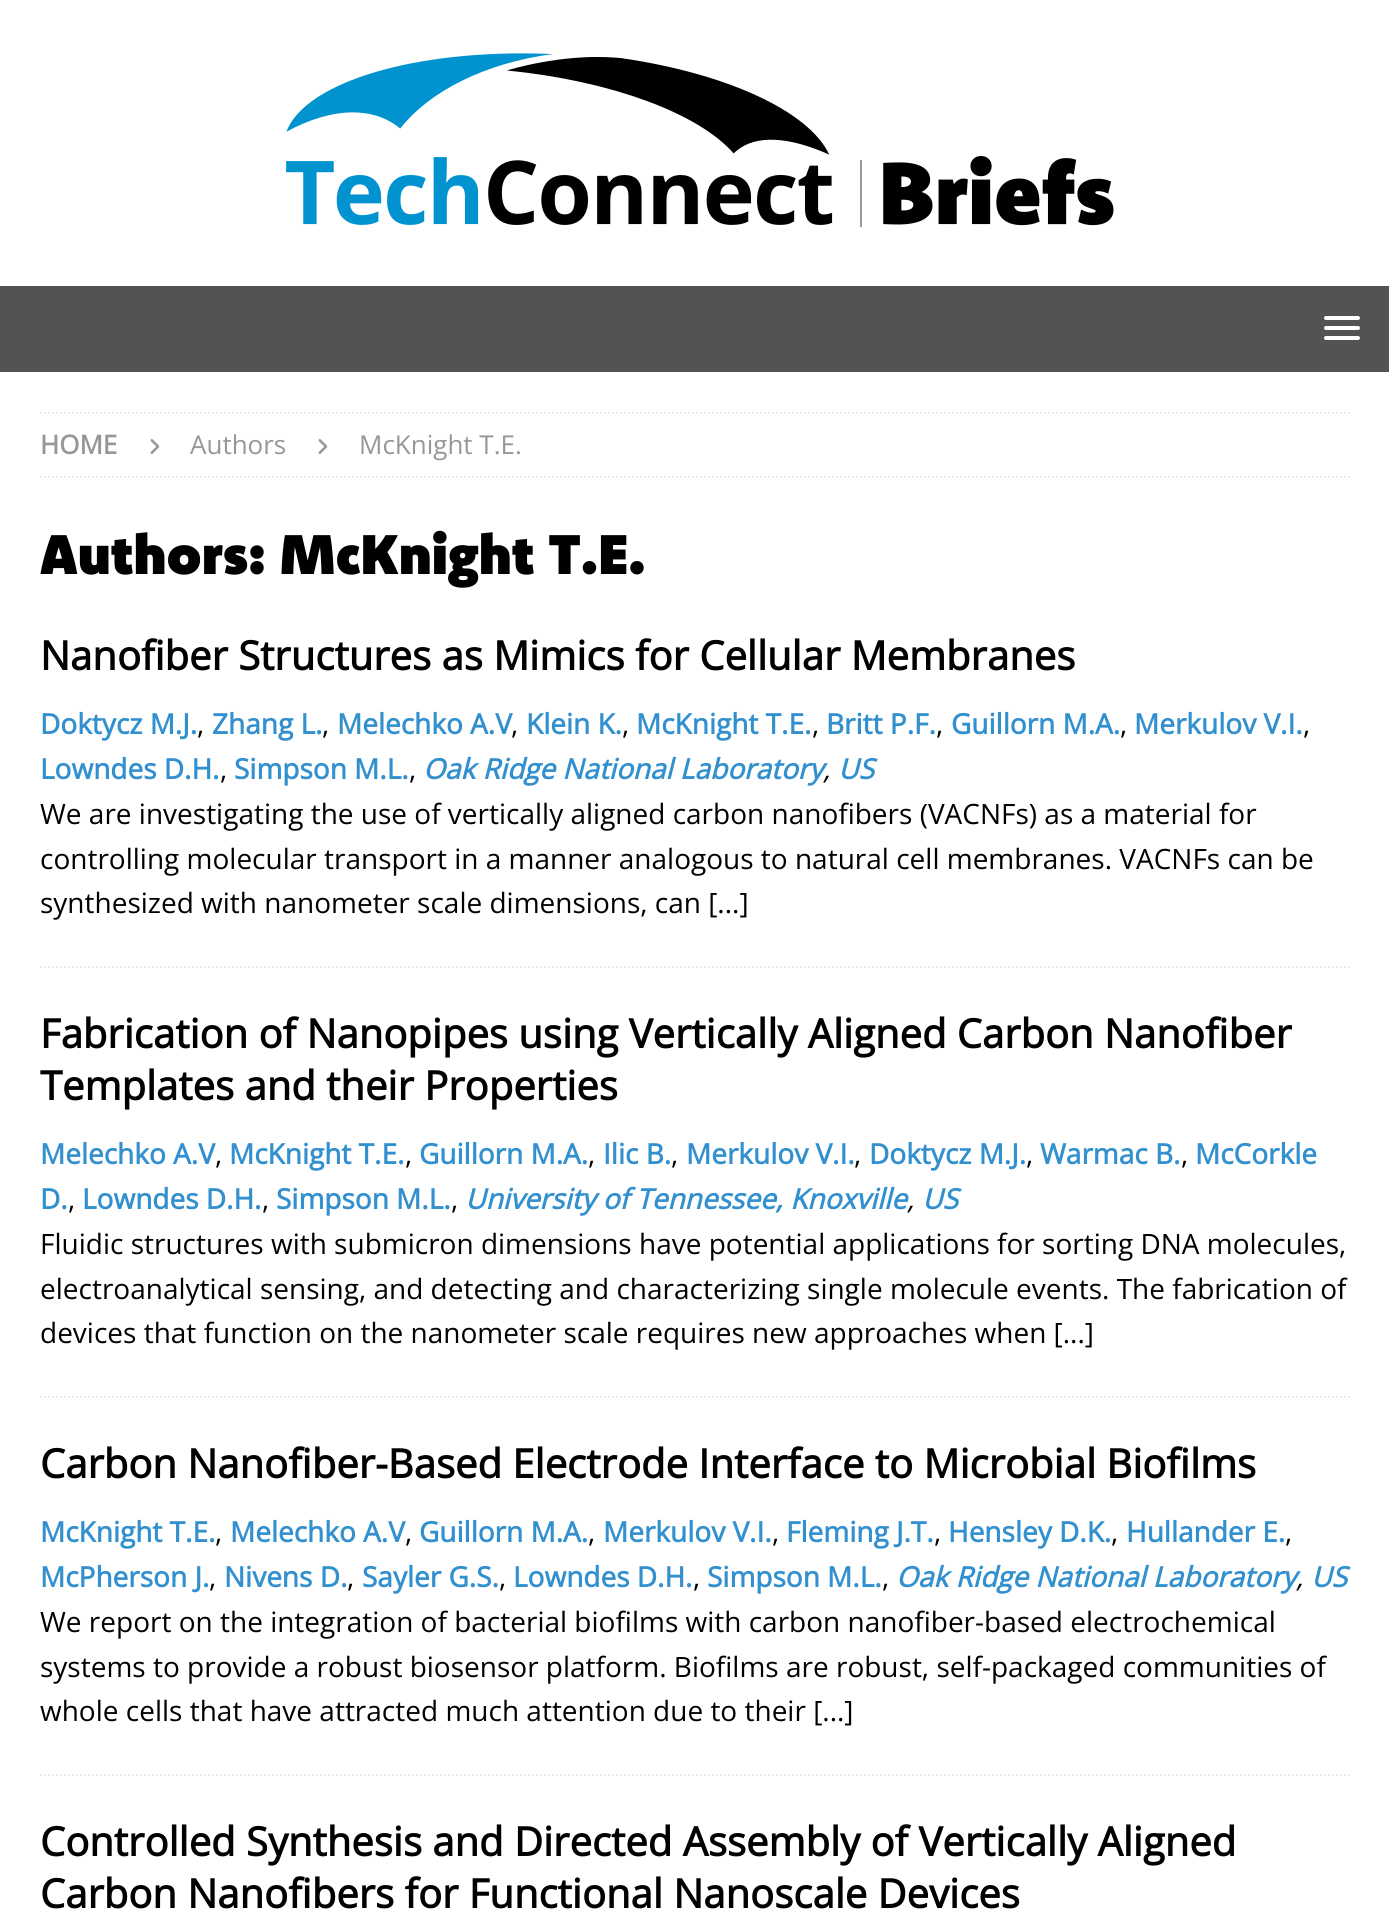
#include <cairo.h>
#include <math.h>
#include <stddef.h>


static void round_rect(cairo_t *cr, double x, double y, double w, double h, double r) {
    cairo_new_sub_path(cr);
    cairo_arc(cr, x + w - r, y + h - r, r, 0, M_PI / 2);
    cairo_arc(cr, x + r, y + h - r, r, M_PI / 2, M_PI);
    cairo_arc(cr, x + r, y + r, r, M_PI, 1.5 * M_PI);
    cairo_arc(cr, x + w - r, y + r, r, 1.5 * M_PI, 2 * M_PI);
    cairo_close_path(cr);
}

static void picture(cairo_t *cr, const char *path, double x, double y, double w, double h) {
    cairo_surface_t *image = cairo_image_surface_create_from_png(path);
    cairo_save(cr);
    cairo_set_source_surface(cr, image, x, y);
    cairo_rectangle(cr, x, y, w, h);
    cairo_fill(cr);
    cairo_restore(cr);
    cairo_surface_destroy(image);
}

int main(void) {
    cairo_surface_t *surface = cairo_image_surface_create(CAIRO_FORMAT_RGB24, 1389, 1932);
    cairo_t *cr = cairo_create(surface);
    cairo_font_options_t *options = cairo_font_options_create();
    cairo_font_options_set_hint_metrics(options, CAIRO_HINT_METRICS_OFF);
    cairo_font_options_set_hint_style(options, CAIRO_HINT_STYLE_NONE);
    cairo_set_font_options(cr, options);
    cairo_set_miter_limit(cr, 4);
    cairo_set_source_rgb(cr, 1, 1, 1);
    cairo_paint(cr);
    picture(cr, "img1.png", 286, 53, 828, 174);
    cairo_set_source_rgb(cr, 0.325, 0.325, 0.325);
    cairo_rectangle(cr, 0, 286, 1389, 86);
    cairo_fill(cr);
    cairo_set_source_rgb(cr, 1, 1, 1);
    round_rect(cr, 1324, 316, 36, 4, 2);
    cairo_fill(cr);
    round_rect(cr, 1324, 326, 36, 4, 2);
    cairo_fill(cr);
    round_rect(cr, 1324, 336, 36, 4, 2);
    cairo_fill(cr);
    cairo_new_path(cr);
    cairo_move_to(cr, 40, 413);
    cairo_line_to(cr, 1350, 413);
    cairo_set_source_rgb(cr, 0.922, 0.922, 0.922);
    cairo_set_dash(cr, (double[]){2, 2}, 2, 0);
    cairo_stroke(cr);
    cairo_new_path(cr);
    cairo_move_to(cr, 40, 477);
    cairo_line_to(cr, 1350, 477);
    cairo_stroke(cr);
    cairo_select_font_face(cr, "Open Sans", CAIRO_FONT_SLANT_NORMAL, CAIRO_FONT_WEIGHT_BOLD);
    cairo_set_font_size(cr, 26);
    cairo_set_source_rgb(cr, 0.592, 0.592, 0.592);
    cairo_move_to(cr, 40, 454);
    cairo_show_text(cr, "HOME");
    picture(cr, "img2.png", 150, 439, 10, 15);
    cairo_select_font_face(cr, "Open Sans", CAIRO_FONT_SLANT_NORMAL, CAIRO_FONT_WEIGHT_NORMAL);
    cairo_move_to(cr, 190, 454);
    cairo_show_text(cr, "Authors");
    picture(cr, "img2.png", 318, 439, 10, 15);
    cairo_move_to(cr, 359, 454);
    cairo_show_text(cr, "McKnight T.E.");
    cairo_select_font_face(cr, "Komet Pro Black", CAIRO_FONT_SLANT_NORMAL, CAIRO_FONT_WEIGHT_NORMAL);
    cairo_set_font_size(cr, 56);
    cairo_set_source_rgb(cr, 0, 0, 0);
    cairo_move_to(cr, 40, 574);
    cairo_show_text(cr, "Authors: McKnight T.E.");
    cairo_new_path(cr);
    cairo_move_to(cr, 40, 967);
    cairo_line_to(cr, 1350, 967);
    cairo_set_source_rgb(cr, 0.922, 0.922, 0.922);
    cairo_stroke(cr);
    cairo_select_font_face(cr, "Open Sans", CAIRO_FONT_SLANT_NORMAL, CAIRO_FONT_WEIGHT_BOLD);
    cairo_set_font_size(cr, 40);
    cairo_set_source_rgb(cr, 0, 0, 0);
    cairo_move_to(cr, 40, 670);
    cairo_show_text(cr, "Nanofiber Structures as Mimics for Cellular Membranes");
    cairo_set_font_size(cr, 28);
    cairo_set_source_rgb(cr, 0.2, 0.565, 0.812);
    cairo_move_to(cr, 40, 734);
    cairo_show_text(cr, "Doktycz M.J.");
    cairo_select_font_face(cr, "Open Sans", CAIRO_FONT_SLANT_NORMAL, CAIRO_FONT_WEIGHT_NORMAL);
    cairo_set_source_rgb(cr, 0, 0, 0);
    cairo_move_to(cr, 197, 734);
    cairo_show_text(cr, ",");
    cairo_select_font_face(cr, "Open Sans", CAIRO_FONT_SLANT_NORMAL, CAIRO_FONT_WEIGHT_BOLD);
    cairo_set_source_rgb(cr, 0.2, 0.565, 0.812);
    cairo_move_to(cr, 212, 734);
    cairo_show_text(cr, "Zhang L.");
    cairo_select_font_face(cr, "Open Sans", CAIRO_FONT_SLANT_NORMAL, CAIRO_FONT_WEIGHT_NORMAL);
    cairo_set_source_rgb(cr, 0, 0, 0);
    cairo_move_to(cr, 322, 734);
    cairo_show_text(cr, ",");
    cairo_select_font_face(cr, "Open Sans", CAIRO_FONT_SLANT_NORMAL, CAIRO_FONT_WEIGHT_BOLD);
    cairo_set_source_rgb(cr, 0.2, 0.565, 0.812);
    cairo_move_to(cr, 337, 734);
    cairo_show_text(cr, "Melechko A.V");
    cairo_select_font_face(cr, "Open Sans", CAIRO_FONT_SLANT_NORMAL, CAIRO_FONT_WEIGHT_NORMAL);
    cairo_set_source_rgb(cr, 0, 0, 0);
    cairo_move_to(cr, 511, 734);
    cairo_show_text(cr, ",");
    cairo_select_font_face(cr, "Open Sans", CAIRO_FONT_SLANT_NORMAL, CAIRO_FONT_WEIGHT_BOLD);
    cairo_set_source_rgb(cr, 0.2, 0.565, 0.812);
    cairo_move_to(cr, 526, 734);
    cairo_show_text(cr, "Klein K.");
    cairo_select_font_face(cr, "Open Sans", CAIRO_FONT_SLANT_NORMAL, CAIRO_FONT_WEIGHT_NORMAL);
    cairo_set_source_rgb(cr, 0, 0, 0);
    cairo_move_to(cr, 622, 734);
    cairo_show_text(cr, ",");
    cairo_select_font_face(cr, "Open Sans", CAIRO_FONT_SLANT_NORMAL, CAIRO_FONT_WEIGHT_BOLD);
    cairo_set_source_rgb(cr, 0.2, 0.565, 0.812);
    cairo_move_to(cr, 636, 734);
    cairo_show_text(cr, "McKnight T.E.");
    cairo_select_font_face(cr, "Open Sans", CAIRO_FONT_SLANT_NORMAL, CAIRO_FONT_WEIGHT_NORMAL);
    cairo_set_source_rgb(cr, 0, 0, 0);
    cairo_move_to(cr, 812, 734);
    cairo_show_text(cr, ",");
    cairo_select_font_face(cr, "Open Sans", CAIRO_FONT_SLANT_NORMAL, CAIRO_FONT_WEIGHT_BOLD);
    cairo_set_source_rgb(cr, 0.2, 0.565, 0.812);
    cairo_move_to(cr, 826, 734);
    cairo_show_text(cr, "Britt P.F.");
    cairo_select_font_face(cr, "Open Sans", CAIRO_FONT_SLANT_NORMAL, CAIRO_FONT_WEIGHT_NORMAL);
    cairo_set_source_rgb(cr, 0, 0, 0);
    cairo_move_to(cr, 936, 734);
    cairo_show_text(cr, ",");
    cairo_select_font_face(cr, "Open Sans", CAIRO_FONT_SLANT_NORMAL, CAIRO_FONT_WEIGHT_BOLD);
    cairo_set_source_rgb(cr, 0.2, 0.565, 0.812);
    cairo_move_to(cr, 951, 734);
    cairo_show_text(cr, "Guillorn M.A.");
    cairo_select_font_face(cr, "Open Sans", CAIRO_FONT_SLANT_NORMAL, CAIRO_FONT_WEIGHT_NORMAL);
    cairo_set_source_rgb(cr, 0, 0, 0);
    cairo_move_to(cr, 1120, 734);
    cairo_show_text(cr, ",");
    cairo_select_font_face(cr, "Open Sans", CAIRO_FONT_SLANT_NORMAL, CAIRO_FONT_WEIGHT_BOLD);
    cairo_set_source_rgb(cr, 0.2, 0.565, 0.812);
    cairo_move_to(cr, 1134, 734);
    cairo_show_text(cr, "Merkulov V.I.");
    cairo_select_font_face(cr, "Open Sans", CAIRO_FONT_SLANT_NORMAL, CAIRO_FONT_WEIGHT_NORMAL);
    cairo_set_source_rgb(cr, 0, 0, 0);
    cairo_move_to(cr, 1303, 734);
    cairo_show_text(cr, ",");
    cairo_select_font_face(cr, "Open Sans", CAIRO_FONT_SLANT_NORMAL, CAIRO_FONT_WEIGHT_BOLD);
    cairo_set_source_rgb(cr, 0.2, 0.565, 0.812);
    cairo_move_to(cr, 40, 779);
    cairo_show_text(cr, "Lowndes D.H.");
    cairo_select_font_face(cr, "Open Sans", CAIRO_FONT_SLANT_NORMAL, CAIRO_FONT_WEIGHT_NORMAL);
    cairo_set_source_rgb(cr, 0, 0, 0);
    cairo_move_to(cr, 220, 779);
    cairo_show_text(cr, ",");
    cairo_select_font_face(cr, "Open Sans", CAIRO_FONT_SLANT_NORMAL, CAIRO_FONT_WEIGHT_BOLD);
    cairo_set_source_rgb(cr, 0.2, 0.565, 0.812);
    cairo_move_to(cr, 234, 779);
    cairo_show_text(cr, "Simpson M.L.");
    cairo_select_font_face(cr, "Open Sans", CAIRO_FONT_SLANT_NORMAL, CAIRO_FONT_WEIGHT_NORMAL);
    cairo_set_source_rgb(cr, 0, 0, 0);
    cairo_move_to(cr, 409, 779);
    cairo_show_text(cr, ",");
    cairo_select_font_face(cr, "Open Sans", CAIRO_FONT_SLANT_ITALIC, CAIRO_FONT_WEIGHT_BOLD);
    cairo_set_source_rgb(cr, 0.2, 0.565, 0.812);
    cairo_move_to(cr, 423, 779);
    cairo_show_text(cr, "Oak Ridge National Laboratory");
    cairo_move_to(cr, 838, 779);
    cairo_show_text(cr, "US");
    cairo_select_font_face(cr, "Open Sans", CAIRO_FONT_SLANT_ITALIC, CAIRO_FONT_WEIGHT_NORMAL);
    cairo_set_source_rgb(cr, 0, 0, 0);
    cairo_move_to(cr, 823, 779);
    cairo_show_text(cr, ",");
    cairo_select_font_face(cr, "Open Sans", CAIRO_FONT_SLANT_NORMAL, CAIRO_FONT_WEIGHT_NORMAL);
    cairo_move_to(cr, 40, 824);
    cairo_show_text(cr, "We are investigating the use of vertically aligned carbon nanofibers (VACNFs) as a material for");
    cairo_move_to(cr, 40, 869);
    cairo_show_text(cr, "controlling molecular transport in a manner analogous to natural cell membranes. VACNFs can be");
    cairo_move_to(cr, 40, 913);
    cairo_show_text(cr, "synthesized with nanometer scale dimensions, can [...]");
    cairo_new_path(cr);
    cairo_move_to(cr, 40, 1397);
    cairo_line_to(cr, 1350, 1397);
    cairo_set_source_rgb(cr, 0.922, 0.922, 0.922);
    cairo_stroke(cr);
    cairo_select_font_face(cr, "Open Sans", CAIRO_FONT_SLANT_NORMAL, CAIRO_FONT_WEIGHT_BOLD);
    cairo_set_font_size(cr, 40);
    cairo_set_source_rgb(cr, 0, 0, 0);
    cairo_move_to(cr, 40, 1048);
    cairo_show_text(cr, "Fabrication of Nanopipes using Vertically Aligned Carbon Nanofiber");
    cairo_move_to(cr, 40, 1100);
    cairo_show_text(cr, "Templates and their Properties");
    cairo_set_font_size(cr, 28);
    cairo_set_source_rgb(cr, 0.2, 0.565, 0.812);
    cairo_move_to(cr, 40, 1164);
    cairo_show_text(cr, "Melechko A.V");
    cairo_select_font_face(cr, "Open Sans", CAIRO_FONT_SLANT_NORMAL, CAIRO_FONT_WEIGHT_NORMAL);
    cairo_set_source_rgb(cr, 0, 0, 0);
    cairo_move_to(cr, 215, 1164);
    cairo_show_text(cr, ",");
    cairo_select_font_face(cr, "Open Sans", CAIRO_FONT_SLANT_NORMAL, CAIRO_FONT_WEIGHT_BOLD);
    cairo_set_source_rgb(cr, 0.2, 0.565, 0.812);
    cairo_move_to(cr, 229, 1164);
    cairo_show_text(cr, "McKnight T.E.");
    cairo_select_font_face(cr, "Open Sans", CAIRO_FONT_SLANT_NORMAL, CAIRO_FONT_WEIGHT_NORMAL);
    cairo_set_source_rgb(cr, 0, 0, 0);
    cairo_move_to(cr, 405, 1164);
    cairo_show_text(cr, ",");
    cairo_select_font_face(cr, "Open Sans", CAIRO_FONT_SLANT_NORMAL, CAIRO_FONT_WEIGHT_BOLD);
    cairo_set_source_rgb(cr, 0.2, 0.565, 0.812);
    cairo_move_to(cr, 419, 1164);
    cairo_show_text(cr, "Guillorn M.A.");
    cairo_select_font_face(cr, "Open Sans", CAIRO_FONT_SLANT_NORMAL, CAIRO_FONT_WEIGHT_NORMAL);
    cairo_set_source_rgb(cr, 0, 0, 0);
    cairo_move_to(cr, 588, 1164);
    cairo_show_text(cr, ",");
    cairo_select_font_face(cr, "Open Sans", CAIRO_FONT_SLANT_NORMAL, CAIRO_FONT_WEIGHT_BOLD);
    cairo_set_source_rgb(cr, 0.2, 0.565, 0.812);
    cairo_move_to(cr, 603, 1164);
    cairo_show_text(cr, "Ilic B.");
    cairo_select_font_face(cr, "Open Sans", CAIRO_FONT_SLANT_NORMAL, CAIRO_FONT_WEIGHT_NORMAL);
    cairo_set_source_rgb(cr, 0, 0, 0);
    cairo_move_to(cr, 671, 1164);
    cairo_show_text(cr, ",");
    cairo_select_font_face(cr, "Open Sans", CAIRO_FONT_SLANT_NORMAL, CAIRO_FONT_WEIGHT_BOLD);
    cairo_set_source_rgb(cr, 0.2, 0.565, 0.812);
    cairo_move_to(cr, 686, 1164);
    cairo_show_text(cr, "Merkulov V.I.");
    cairo_select_font_face(cr, "Open Sans", CAIRO_FONT_SLANT_NORMAL, CAIRO_FONT_WEIGHT_NORMAL);
    cairo_set_source_rgb(cr, 0, 0, 0);
    cairo_move_to(cr, 854, 1164);
    cairo_show_text(cr, ",");
    cairo_select_font_face(cr, "Open Sans", CAIRO_FONT_SLANT_NORMAL, CAIRO_FONT_WEIGHT_BOLD);
    cairo_set_source_rgb(cr, 0.2, 0.565, 0.812);
    cairo_move_to(cr, 869, 1164);
    cairo_show_text(cr, "Doktycz M.J.");
    cairo_select_font_face(cr, "Open Sans", CAIRO_FONT_SLANT_NORMAL, CAIRO_FONT_WEIGHT_NORMAL);
    cairo_set_source_rgb(cr, 0, 0, 0);
    cairo_move_to(cr, 1026, 1164);
    cairo_show_text(cr, ",");
    cairo_select_font_face(cr, "Open Sans", CAIRO_FONT_SLANT_NORMAL, CAIRO_FONT_WEIGHT_BOLD);
    cairo_set_source_rgb(cr, 0.2, 0.565, 0.812);
    cairo_move_to(cr, 1040, 1164);
    cairo_show_text(cr, "Warmac B.");
    cairo_select_font_face(cr, "Open Sans", CAIRO_FONT_SLANT_NORMAL, CAIRO_FONT_WEIGHT_NORMAL);
    cairo_set_source_rgb(cr, 0, 0, 0);
    cairo_move_to(cr, 1181, 1164);
    cairo_show_text(cr, ",");
    cairo_select_font_face(cr, "Open Sans", CAIRO_FONT_SLANT_NORMAL, CAIRO_FONT_WEIGHT_BOLD);
    cairo_set_source_rgb(cr, 0.2, 0.565, 0.812);
    cairo_move_to(cr, 1195, 1164);
    cairo_show_text(cr, "McCorkle");
    cairo_move_to(cr, 40, 1209);
    cairo_show_text(cr, "D.");
    cairo_select_font_face(cr, "Open Sans", CAIRO_FONT_SLANT_NORMAL, CAIRO_FONT_WEIGHT_NORMAL);
    cairo_set_source_rgb(cr, 0, 0, 0);
    cairo_move_to(cr, 68, 1209);
    cairo_show_text(cr, ",");
    cairo_select_font_face(cr, "Open Sans", CAIRO_FONT_SLANT_NORMAL, CAIRO_FONT_WEIGHT_BOLD);
    cairo_set_source_rgb(cr, 0.2, 0.565, 0.812);
    cairo_move_to(cr, 82, 1209);
    cairo_show_text(cr, "Lowndes D.H.");
    cairo_select_font_face(cr, "Open Sans", CAIRO_FONT_SLANT_NORMAL, CAIRO_FONT_WEIGHT_NORMAL);
    cairo_set_source_rgb(cr, 0, 0, 0);
    cairo_move_to(cr, 262, 1209);
    cairo_show_text(cr, ",");
    cairo_select_font_face(cr, "Open Sans", CAIRO_FONT_SLANT_NORMAL, CAIRO_FONT_WEIGHT_BOLD);
    cairo_set_source_rgb(cr, 0.2, 0.565, 0.812);
    cairo_move_to(cr, 276, 1209);
    cairo_show_text(cr, "Simpson M.L.");
    cairo_select_font_face(cr, "Open Sans", CAIRO_FONT_SLANT_NORMAL, CAIRO_FONT_WEIGHT_NORMAL);
    cairo_set_source_rgb(cr, 0, 0, 0);
    cairo_move_to(cr, 451, 1209);
    cairo_show_text(cr, ",");
    cairo_select_font_face(cr, "Open Sans", CAIRO_FONT_SLANT_ITALIC, CAIRO_FONT_WEIGHT_BOLD);
    cairo_set_source_rgb(cr, 0.2, 0.565, 0.812);
    cairo_move_to(cr, 465, 1209);
    cairo_show_text(cr, "University of Tennessee, Knoxville");
    cairo_select_font_face(cr, "Open Sans", CAIRO_FONT_SLANT_ITALIC, CAIRO_FONT_WEIGHT_NORMAL);
    cairo_set_source_rgb(cr, 0, 0, 0);
    cairo_move_to(cr, 907, 1209);
    cairo_show_text(cr, ",");
    cairo_select_font_face(cr, "Open Sans", CAIRO_FONT_SLANT_ITALIC, CAIRO_FONT_WEIGHT_BOLD);
    cairo_set_source_rgb(cr, 0.2, 0.565, 0.812);
    cairo_move_to(cr, 922, 1209);
    cairo_show_text(cr, "US");
    cairo_select_font_face(cr, "Open Sans", CAIRO_FONT_SLANT_NORMAL, CAIRO_FONT_WEIGHT_NORMAL);
    cairo_set_source_rgb(cr, 0, 0, 0);
    cairo_move_to(cr, 40, 1254);
    cairo_show_text(cr, "Fluidic structures with submicron dimensions have potential applications for sorting DNA molecules,");
    cairo_move_to(cr, 40, 1299);
    cairo_show_text(cr, "electroanalytical sensing, and detecting and characterizing single molecule events. The fabrication of");
    cairo_move_to(cr, 40, 1343);
    cairo_show_text(cr, "devices that function on the nanometer scale requires new approaches when [...]");
    cairo_new_path(cr);
    cairo_move_to(cr, 40, 1775);
    cairo_line_to(cr, 1350, 1775);
    cairo_set_source_rgb(cr, 0.922, 0.922, 0.922);
    cairo_stroke(cr);
    cairo_select_font_face(cr, "Open Sans", CAIRO_FONT_SLANT_NORMAL, CAIRO_FONT_WEIGHT_BOLD);
    cairo_set_font_size(cr, 40);
    cairo_set_source_rgb(cr, 0, 0, 0);
    cairo_move_to(cr, 40, 1478);
    cairo_show_text(cr, "Carbon Nanofiber-Based Electrode Interface to Microbial Biofilms");
    cairo_set_font_size(cr, 28);
    cairo_set_source_rgb(cr, 0.2, 0.565, 0.812);
    cairo_move_to(cr, 40, 1542);
    cairo_show_text(cr, "McKnight T.E.");
    cairo_select_font_face(cr, "Open Sans", CAIRO_FONT_SLANT_NORMAL, CAIRO_FONT_WEIGHT_NORMAL);
    cairo_set_source_rgb(cr, 0, 0, 0);
    cairo_move_to(cr, 215, 1542);
    cairo_show_text(cr, ",");
    cairo_select_font_face(cr, "Open Sans", CAIRO_FONT_SLANT_NORMAL, CAIRO_FONT_WEIGHT_BOLD);
    cairo_set_source_rgb(cr, 0.2, 0.565, 0.812);
    cairo_move_to(cr, 230, 1542);
    cairo_show_text(cr, "Melechko A.V");
    cairo_select_font_face(cr, "Open Sans", CAIRO_FONT_SLANT_NORMAL, CAIRO_FONT_WEIGHT_NORMAL);
    cairo_set_source_rgb(cr, 0, 0, 0);
    cairo_move_to(cr, 405, 1542);
    cairo_show_text(cr, ",");
    cairo_select_font_face(cr, "Open Sans", CAIRO_FONT_SLANT_NORMAL, CAIRO_FONT_WEIGHT_BOLD);
    cairo_set_source_rgb(cr, 0.2, 0.565, 0.812);
    cairo_move_to(cr, 419, 1542);
    cairo_show_text(cr, "Guillorn M.A.");
    cairo_select_font_face(cr, "Open Sans", CAIRO_FONT_SLANT_NORMAL, CAIRO_FONT_WEIGHT_NORMAL);
    cairo_set_source_rgb(cr, 0, 0, 0);
    cairo_move_to(cr, 588, 1542);
    cairo_show_text(cr, ",");
    cairo_select_font_face(cr, "Open Sans", CAIRO_FONT_SLANT_NORMAL, CAIRO_FONT_WEIGHT_BOLD);
    cairo_set_source_rgb(cr, 0.2, 0.565, 0.812);
    cairo_move_to(cr, 603, 1542);
    cairo_show_text(cr, "Merkulov V.I.");
    cairo_select_font_face(cr, "Open Sans", CAIRO_FONT_SLANT_NORMAL, CAIRO_FONT_WEIGHT_NORMAL);
    cairo_set_source_rgb(cr, 0, 0, 0);
    cairo_move_to(cr, 772, 1542);
    cairo_show_text(cr, ",");
    cairo_select_font_face(cr, "Open Sans", CAIRO_FONT_SLANT_NORMAL, CAIRO_FONT_WEIGHT_BOLD);
    cairo_set_source_rgb(cr, 0.2, 0.565, 0.812);
    cairo_move_to(cr, 786, 1542);
    cairo_show_text(cr, "Fleming J.T.");
    cairo_select_font_face(cr, "Open Sans", CAIRO_FONT_SLANT_NORMAL, CAIRO_FONT_WEIGHT_NORMAL);
    cairo_set_source_rgb(cr, 0, 0, 0);
    cairo_move_to(cr, 934, 1542);
    cairo_show_text(cr, ",");
    cairo_select_font_face(cr, "Open Sans", CAIRO_FONT_SLANT_NORMAL, CAIRO_FONT_WEIGHT_BOLD);
    cairo_set_source_rgb(cr, 0.2, 0.565, 0.812);
    cairo_move_to(cr, 948, 1542);
    cairo_show_text(cr, "Hensley D.K.");
    cairo_select_font_face(cr, "Open Sans", CAIRO_FONT_SLANT_NORMAL, CAIRO_FONT_WEIGHT_NORMAL);
    cairo_set_source_rgb(cr, 0, 0, 0);
    cairo_move_to(cr, 1111, 1542);
    cairo_show_text(cr, ",");
    cairo_select_font_face(cr, "Open Sans", CAIRO_FONT_SLANT_NORMAL, CAIRO_FONT_WEIGHT_BOLD);
    cairo_set_source_rgb(cr, 0.2, 0.565, 0.812);
    cairo_move_to(cr, 1126, 1542);
    cairo_show_text(cr, "Hullander E.");
    cairo_select_font_face(cr, "Open Sans", CAIRO_FONT_SLANT_NORMAL, CAIRO_FONT_WEIGHT_NORMAL);
    cairo_set_source_rgb(cr, 0, 0, 0);
    cairo_move_to(cr, 1285, 1542);
    cairo_show_text(cr, ",");
    cairo_select_font_face(cr, "Open Sans", CAIRO_FONT_SLANT_NORMAL, CAIRO_FONT_WEIGHT_BOLD);
    cairo_set_source_rgb(cr, 0.2, 0.565, 0.812);
    cairo_move_to(cr, 40, 1587);
    cairo_show_text(cr, "McPherson J.");
    cairo_select_font_face(cr, "Open Sans", CAIRO_FONT_SLANT_NORMAL, CAIRO_FONT_WEIGHT_NORMAL);
    cairo_set_source_rgb(cr, 0, 0, 0);
    cairo_move_to(cr, 209, 1587);
    cairo_show_text(cr, ",");
    cairo_select_font_face(cr, "Open Sans", CAIRO_FONT_SLANT_NORMAL, CAIRO_FONT_WEIGHT_BOLD);
    cairo_set_source_rgb(cr, 0.2, 0.565, 0.812);
    cairo_move_to(cr, 224, 1587);
    cairo_show_text(cr, "Nivens D.");
    cairo_select_font_face(cr, "Open Sans", CAIRO_FONT_SLANT_NORMAL, CAIRO_FONT_WEIGHT_NORMAL);
    cairo_set_source_rgb(cr, 0, 0, 0);
    cairo_move_to(cr, 347, 1587);
    cairo_show_text(cr, ",");
    cairo_select_font_face(cr, "Open Sans", CAIRO_FONT_SLANT_NORMAL, CAIRO_FONT_WEIGHT_BOLD);
    cairo_set_source_rgb(cr, 0.2, 0.565, 0.812);
    cairo_move_to(cr, 362, 1587);
    cairo_show_text(cr, "Sayler G.S.");
    cairo_select_font_face(cr, "Open Sans", CAIRO_FONT_SLANT_NORMAL, CAIRO_FONT_WEIGHT_NORMAL);
    cairo_set_source_rgb(cr, 0, 0, 0);
    cairo_move_to(cr, 499, 1587);
    cairo_show_text(cr, ",");
    cairo_select_font_face(cr, "Open Sans", CAIRO_FONT_SLANT_NORMAL, CAIRO_FONT_WEIGHT_BOLD);
    cairo_set_source_rgb(cr, 0.2, 0.565, 0.812);
    cairo_move_to(cr, 513, 1587);
    cairo_show_text(cr, "Lowndes D.H.");
    cairo_select_font_face(cr, "Open Sans", CAIRO_FONT_SLANT_NORMAL, CAIRO_FONT_WEIGHT_NORMAL);
    cairo_set_source_rgb(cr, 0, 0, 0);
    cairo_move_to(cr, 693, 1587);
    cairo_show_text(cr, ",");
    cairo_select_font_face(cr, "Open Sans", CAIRO_FONT_SLANT_NORMAL, CAIRO_FONT_WEIGHT_BOLD);
    cairo_set_source_rgb(cr, 0.2, 0.565, 0.812);
    cairo_move_to(cr, 707, 1587);
    cairo_show_text(cr, "Simpson M.L.");
    cairo_select_font_face(cr, "Open Sans", CAIRO_FONT_SLANT_NORMAL, CAIRO_FONT_WEIGHT_NORMAL);
    cairo_set_source_rgb(cr, 0, 0, 0);
    cairo_move_to(cr, 882, 1587);
    cairo_show_text(cr, ",");
    cairo_select_font_face(cr, "Open Sans", CAIRO_FONT_SLANT_ITALIC, CAIRO_FONT_WEIGHT_BOLD);
    cairo_set_source_rgb(cr, 0.2, 0.565, 0.812);
    cairo_move_to(cr, 896, 1587);
    cairo_show_text(cr, "Oak Ridge National Laboratory");
    cairo_move_to(cr, 1311, 1587);
    cairo_show_text(cr, "US");
    cairo_select_font_face(cr, "Open Sans", CAIRO_FONT_SLANT_ITALIC, CAIRO_FONT_WEIGHT_NORMAL);
    cairo_set_source_rgb(cr, 0, 0, 0);
    cairo_move_to(cr, 1296, 1587);
    cairo_show_text(cr, ",");
    cairo_select_font_face(cr, "Open Sans", CAIRO_FONT_SLANT_NORMAL, CAIRO_FONT_WEIGHT_NORMAL);
    cairo_move_to(cr, 40, 1632);
    cairo_show_text(cr, "We report on the integration of bacterial biofilms with carbon nanofiber-based electrochemical");
    cairo_move_to(cr, 40, 1677);
    cairo_show_text(cr, "systems to provide a robust biosensor platform. Biofilms are robust, self-packaged communities of");
    cairo_move_to(cr, 40, 1721);
    cairo_show_text(cr, "whole cells that have attracted much attention due to their [...]");
    cairo_select_font_face(cr, "Open Sans", CAIRO_FONT_SLANT_NORMAL, CAIRO_FONT_WEIGHT_BOLD);
    cairo_set_font_size(cr, 40);
    cairo_move_to(cr, 40, 1856);
    cairo_show_text(cr, "Controlled Synthesis and Directed Assembly of Vertically Aligned");
    cairo_move_to(cr, 40, 1908);
    cairo_show_text(cr, "Carbon Nanofibers for Functional Nanoscale Devices");
    cairo_surface_write_to_png(surface, "page.png");
    cairo_font_options_destroy(options);
    cairo_destroy(cr);
    cairo_surface_destroy(surface);
    return 0;
}
